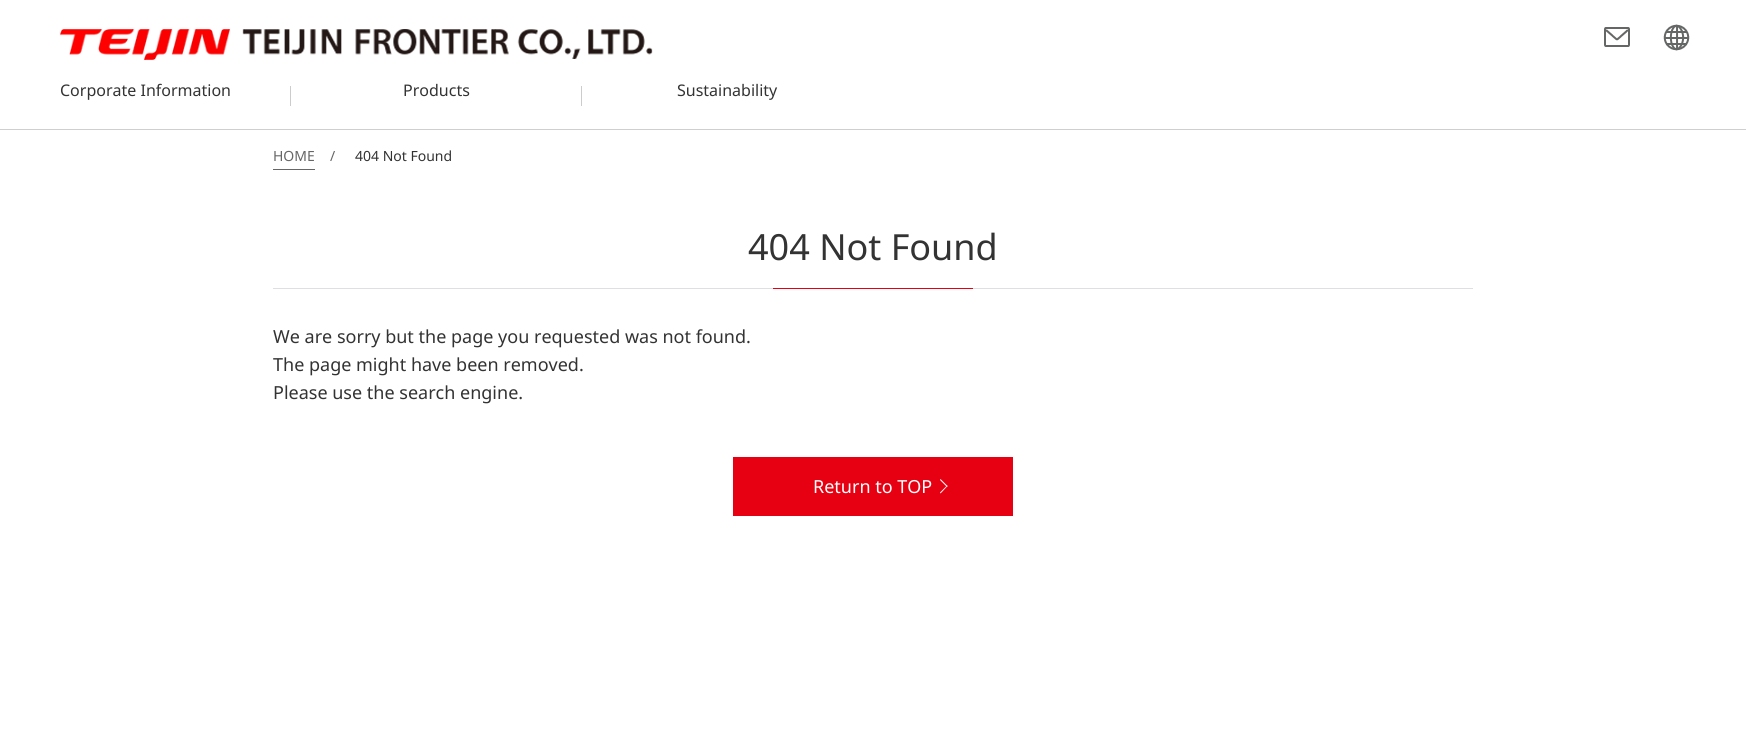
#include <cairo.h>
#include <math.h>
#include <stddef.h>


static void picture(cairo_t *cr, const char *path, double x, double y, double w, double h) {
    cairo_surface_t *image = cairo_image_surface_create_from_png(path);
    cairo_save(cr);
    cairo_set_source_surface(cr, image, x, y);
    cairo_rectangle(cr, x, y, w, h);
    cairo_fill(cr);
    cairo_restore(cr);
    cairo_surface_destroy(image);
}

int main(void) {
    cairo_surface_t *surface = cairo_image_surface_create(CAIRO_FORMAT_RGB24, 1746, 750);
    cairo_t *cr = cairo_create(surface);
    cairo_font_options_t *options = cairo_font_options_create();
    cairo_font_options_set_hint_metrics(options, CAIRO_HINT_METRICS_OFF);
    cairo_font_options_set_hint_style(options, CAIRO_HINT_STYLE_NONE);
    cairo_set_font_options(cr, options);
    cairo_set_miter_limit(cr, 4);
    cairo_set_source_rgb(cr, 1, 1, 1);
    cairo_paint(cr);
    picture(cr, "img1.png", 60, 29, 170, 31);
    picture(cr, "img2.png", 242, 29, 411, 30);
    picture(cr, "img3.png", 1604, 27, 26, 20);
    picture(cr, "img4.png", 1663, 24, 27, 27);
    cairo_set_source_rgb(cr, 0.812, 0.812, 0.812);
    cairo_rectangle(cr, 0, 129, 1746, 1);
    cairo_fill(cr);
    cairo_select_font_face(cr, "Noto Sans", CAIRO_FONT_SLANT_NORMAL, CAIRO_FONT_WEIGHT_NORMAL);
    cairo_set_font_size(cr, 16);
    cairo_set_source_rgb(cr, 0.2, 0.2, 0.2);
    cairo_move_to(cr, 60, 96);
    cairo_show_text(cr, "Corporate Information");
    cairo_set_source_rgb(cr, 0.8, 0.8, 0.8);
    cairo_rectangle(cr, 290, 86, 1, 20);
    cairo_fill(cr);
    cairo_set_source_rgb(cr, 0.2, 0.2, 0.2);
    cairo_move_to(cr, 403, 96);
    cairo_show_text(cr, "Products");
    cairo_set_source_rgb(cr, 0.8, 0.8, 0.8);
    cairo_rectangle(cr, 581, 86, 1, 20);
    cairo_fill(cr);
    cairo_set_source_rgb(cr, 0.2, 0.2, 0.2);
    cairo_move_to(cr, 677, 96);
    cairo_show_text(cr, "Sustainability");
    cairo_set_font_size(cr, 14);
    cairo_set_source_rgb(cr, 0.4, 0.4, 0.4);
    cairo_move_to(cr, 273, 161);
    cairo_show_text(cr, "HOME");
    cairo_rectangle(cr, 273, 169, 42, 1);
    cairo_fill(cr);
    cairo_move_to(cr, 330, 161);
    cairo_show_text(cr, "/");
    cairo_set_source_rgb(cr, 0.2, 0.2, 0.2);
    cairo_move_to(cr, 355, 161);
    cairo_show_text(cr, "404 Not Found");
    cairo_set_source_rgb(cr, 0.875, 0.875, 0.89);
    cairo_rectangle(cr, 273, 288, 1200, 1);
    cairo_fill(cr);
    cairo_set_font_size(cr, 36);
    cairo_set_source_rgb(cr, 0.2, 0.2, 0.2);
    cairo_move_to(cr, 748, 260);
    cairo_show_text(cr, "404 Not Found");
    cairo_set_source_rgb(cr, 0.902, 0, 0.071);
    cairo_rectangle(cr, 773, 288, 200, 1);
    cairo_fill(cr);
    cairo_set_font_size(cr, 18);
    cairo_set_source_rgb(cr, 0.2, 0.2, 0.2);
    cairo_move_to(cr, 273, 343);
    cairo_show_text(cr, "We are sorry but the page you requested was not found.");
    cairo_move_to(cr, 273, 371);
    cairo_show_text(cr, "The page might have been removed.");
    cairo_move_to(cr, 273, 399);
    cairo_show_text(cr, "Please use the search engine.");
    cairo_set_source_rgb(cr, 0.902, 0, 0.071);
    cairo_rectangle(cr, 733, 457, 280, 59);
    cairo_fill(cr);
    cairo_set_source_rgb(cr, 1, 1, 1);
    cairo_move_to(cr, 813, 493);
    cairo_show_text(cr, "Return to TOP");
    cairo_new_path(cr);
    cairo_move_to(cr, 940.5, 479);
    cairo_line_to(cr, 947.5, 486);
    cairo_line_to(cr, 947, 487);
    cairo_line_to(cr, 940, 480);
    cairo_close_path(cr);
    cairo_fill(cr);
    cairo_new_path(cr);
    cairo_move_to(cr, 947, 485.5);
    cairo_line_to(cr, 947.5, 486);
    cairo_line_to(cr, 940.5, 493.5);
    cairo_line_to(cr, 940, 492.5);
    cairo_close_path(cr);
    cairo_fill(cr);
    cairo_surface_write_to_png(surface, "page.png");
    cairo_font_options_destroy(options);
    cairo_destroy(cr);
    cairo_surface_destroy(surface);
    return 0;
}
